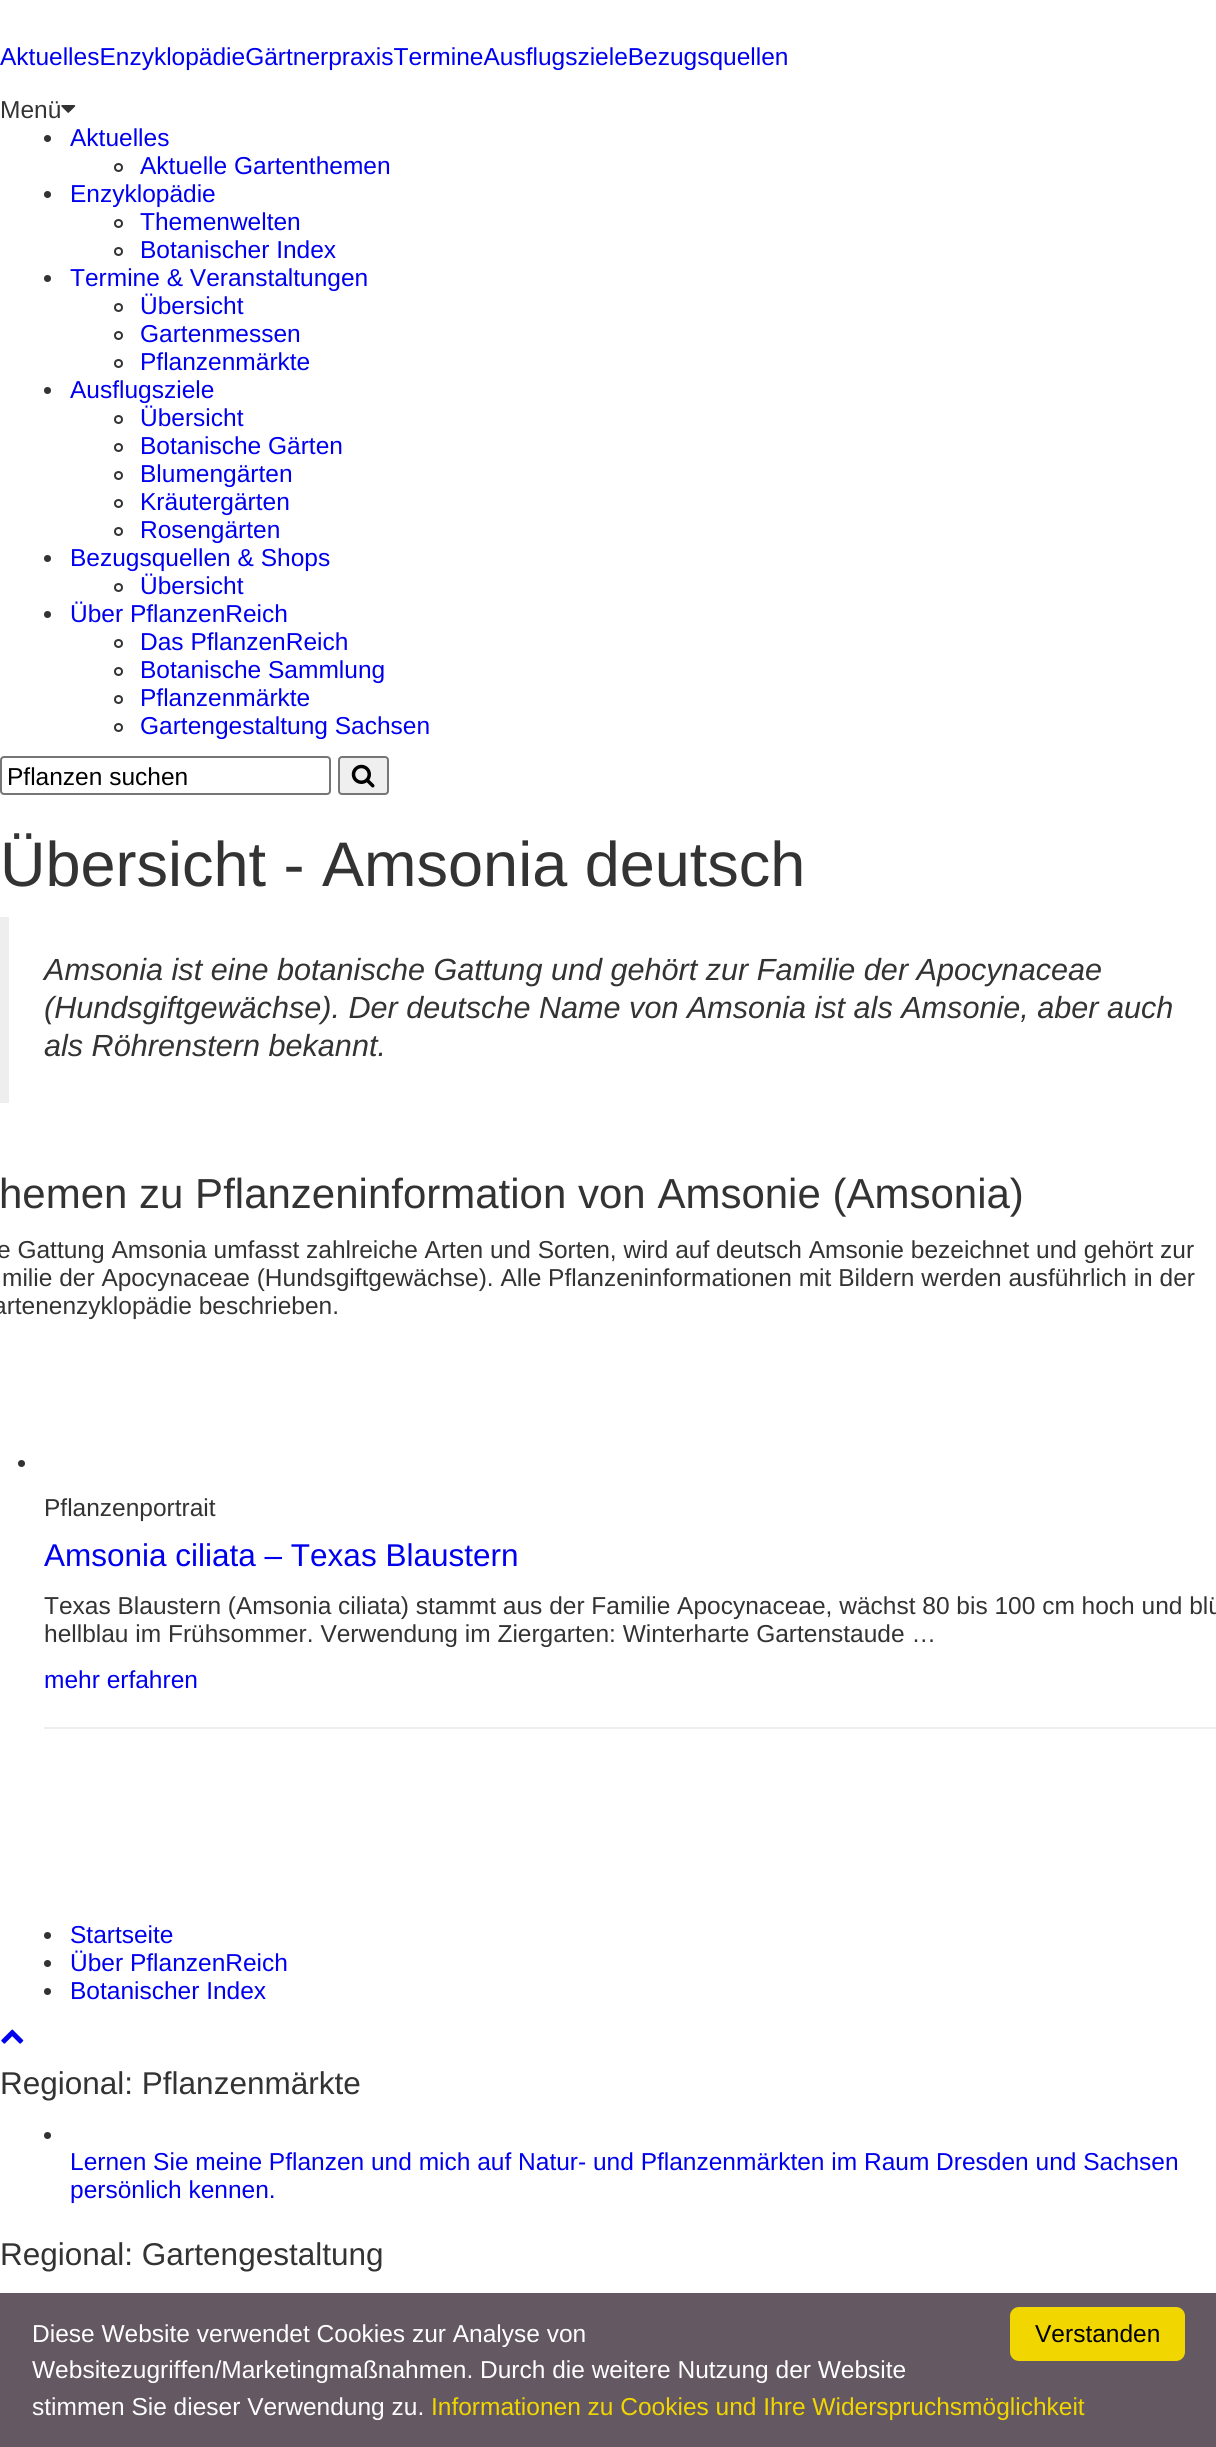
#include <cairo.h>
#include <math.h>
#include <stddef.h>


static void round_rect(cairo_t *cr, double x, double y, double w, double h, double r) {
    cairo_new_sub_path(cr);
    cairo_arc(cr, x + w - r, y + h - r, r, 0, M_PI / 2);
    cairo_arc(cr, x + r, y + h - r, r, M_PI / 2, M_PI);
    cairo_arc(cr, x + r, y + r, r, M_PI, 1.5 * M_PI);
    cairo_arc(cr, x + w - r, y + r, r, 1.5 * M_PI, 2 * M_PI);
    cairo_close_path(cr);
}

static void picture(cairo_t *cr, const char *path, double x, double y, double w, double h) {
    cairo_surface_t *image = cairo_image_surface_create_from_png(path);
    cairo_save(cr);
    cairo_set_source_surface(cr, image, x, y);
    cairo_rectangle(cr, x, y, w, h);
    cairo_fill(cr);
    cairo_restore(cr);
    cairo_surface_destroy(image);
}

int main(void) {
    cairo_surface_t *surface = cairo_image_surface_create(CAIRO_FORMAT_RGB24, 1216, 2447);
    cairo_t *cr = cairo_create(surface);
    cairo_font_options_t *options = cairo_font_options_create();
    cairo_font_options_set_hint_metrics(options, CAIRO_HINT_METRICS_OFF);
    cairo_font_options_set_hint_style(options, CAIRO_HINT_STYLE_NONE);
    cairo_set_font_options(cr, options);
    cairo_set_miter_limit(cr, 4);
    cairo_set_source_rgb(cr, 1, 1, 1);
    cairo_paint(cr);
    cairo_select_font_face(cr, "Liberation Sans", CAIRO_FONT_SLANT_NORMAL, CAIRO_FONT_WEIGHT_NORMAL);
    cairo_set_font_size(cr, 24.5);
    cairo_set_source_rgb(cr, 0, 0, 0.933);
    cairo_move_to(cr, 0, 65);
    cairo_show_text(cr, "AktuellesEnzyklopädieGärtnerpraxisTermineAusflugszieleBezugsquellen");
    cairo_set_source_rgb(cr, 0.2, 0.2, 0.2);
    cairo_move_to(cr, 0, 118);
    cairo_show_text(cr, "Menü");
    picture(cr, "img1.png", 61, 105, 15, 8);
    cairo_arc(cr, 47.5, 138.5, 3.5, 0, 2 * M_PI);
    cairo_fill(cr);
    cairo_set_source_rgb(cr, 0, 0, 0.933);
    cairo_move_to(cr, 70, 146);
    cairo_show_text(cr, "Aktuelles");
    cairo_new_path(cr);
    cairo_arc(cr, 118.5, 167.5, 3.5, 0, 2 * M_PI);
    cairo_set_source_rgb(cr, 0.2, 0.2, 0.2);
    cairo_stroke(cr);
    cairo_set_source_rgb(cr, 0, 0, 0.933);
    cairo_move_to(cr, 140, 174);
    cairo_show_text(cr, "Aktuelle Gartenthemen");
    cairo_set_source_rgb(cr, 0.2, 0.2, 0.2);
    cairo_new_path(cr);
    cairo_arc(cr, 47.5, 194.5, 3.5, 0, 2 * M_PI);
    cairo_fill(cr);
    cairo_set_source_rgb(cr, 0, 0, 0.933);
    cairo_move_to(cr, 70, 202);
    cairo_show_text(cr, "Enzyklopädie");
    cairo_new_path(cr);
    cairo_arc(cr, 118.5, 223.5, 3.5, 0, 2 * M_PI);
    cairo_set_source_rgb(cr, 0.2, 0.2, 0.2);
    cairo_stroke(cr);
    cairo_set_source_rgb(cr, 0, 0, 0.933);
    cairo_move_to(cr, 140, 230);
    cairo_show_text(cr, "Themenwelten");
    cairo_new_path(cr);
    cairo_arc(cr, 118.5, 251.5, 3.5, 0, 2 * M_PI);
    cairo_set_source_rgb(cr, 0.2, 0.2, 0.2);
    cairo_stroke(cr);
    cairo_set_source_rgb(cr, 0, 0, 0.933);
    cairo_move_to(cr, 140, 258);
    cairo_show_text(cr, "Botanischer Index");
    cairo_set_source_rgb(cr, 0.2, 0.2, 0.2);
    cairo_new_path(cr);
    cairo_arc(cr, 47.5, 278.5, 3.5, 0, 2 * M_PI);
    cairo_fill(cr);
    cairo_set_source_rgb(cr, 0, 0, 0.933);
    cairo_move_to(cr, 70, 286);
    cairo_show_text(cr, "Termine & Veranstaltungen");
    cairo_new_path(cr);
    cairo_arc(cr, 118.5, 307.5, 3.5, 0, 2 * M_PI);
    cairo_set_source_rgb(cr, 0.2, 0.2, 0.2);
    cairo_stroke(cr);
    cairo_set_source_rgb(cr, 0, 0, 0.933);
    cairo_move_to(cr, 140, 314);
    cairo_show_text(cr, "Übersicht");
    cairo_new_path(cr);
    cairo_arc(cr, 118.5, 335.5, 3.5, 0, 2 * M_PI);
    cairo_set_source_rgb(cr, 0.2, 0.2, 0.2);
    cairo_stroke(cr);
    cairo_set_source_rgb(cr, 0, 0, 0.933);
    cairo_move_to(cr, 140, 342);
    cairo_show_text(cr, "Gartenmessen");
    cairo_new_path(cr);
    cairo_arc(cr, 118.5, 363.5, 3.5, 0, 2 * M_PI);
    cairo_set_source_rgb(cr, 0.2, 0.2, 0.2);
    cairo_stroke(cr);
    cairo_set_source_rgb(cr, 0, 0, 0.933);
    cairo_move_to(cr, 140, 370);
    cairo_show_text(cr, "Pflanzenmärkte");
    cairo_set_source_rgb(cr, 0.2, 0.2, 0.2);
    cairo_new_path(cr);
    cairo_arc(cr, 47.5, 390.5, 3.5, 0, 2 * M_PI);
    cairo_fill(cr);
    cairo_set_source_rgb(cr, 0, 0, 0.933);
    cairo_move_to(cr, 70, 398);
    cairo_show_text(cr, "Ausflugsziele");
    cairo_new_path(cr);
    cairo_arc(cr, 118.5, 419.5, 3.5, 0, 2 * M_PI);
    cairo_set_source_rgb(cr, 0.2, 0.2, 0.2);
    cairo_stroke(cr);
    cairo_set_source_rgb(cr, 0, 0, 0.933);
    cairo_move_to(cr, 140, 426);
    cairo_show_text(cr, "Übersicht");
    cairo_new_path(cr);
    cairo_arc(cr, 118.5, 447.5, 3.5, 0, 2 * M_PI);
    cairo_set_source_rgb(cr, 0.2, 0.2, 0.2);
    cairo_stroke(cr);
    cairo_set_source_rgb(cr, 0, 0, 0.933);
    cairo_move_to(cr, 140, 454);
    cairo_show_text(cr, "Botanische Gärten");
    cairo_new_path(cr);
    cairo_arc(cr, 118.5, 475.5, 3.5, 0, 2 * M_PI);
    cairo_set_source_rgb(cr, 0.2, 0.2, 0.2);
    cairo_stroke(cr);
    cairo_set_source_rgb(cr, 0, 0, 0.933);
    cairo_move_to(cr, 140, 482);
    cairo_show_text(cr, "Blumengärten");
    cairo_new_path(cr);
    cairo_arc(cr, 118.5, 503.5, 3.5, 0, 2 * M_PI);
    cairo_set_source_rgb(cr, 0.2, 0.2, 0.2);
    cairo_stroke(cr);
    cairo_set_source_rgb(cr, 0, 0, 0.933);
    cairo_move_to(cr, 140, 510);
    cairo_show_text(cr, "Kräutergärten");
    cairo_new_path(cr);
    cairo_arc(cr, 118.5, 531.5, 3.5, 0, 2 * M_PI);
    cairo_set_source_rgb(cr, 0.2, 0.2, 0.2);
    cairo_stroke(cr);
    cairo_set_source_rgb(cr, 0, 0, 0.933);
    cairo_move_to(cr, 140, 538);
    cairo_show_text(cr, "Rosengärten");
    cairo_set_source_rgb(cr, 0.2, 0.2, 0.2);
    cairo_new_path(cr);
    cairo_arc(cr, 47.5, 558.5, 3.5, 0, 2 * M_PI);
    cairo_fill(cr);
    cairo_set_source_rgb(cr, 0, 0, 0.933);
    cairo_move_to(cr, 70, 566);
    cairo_show_text(cr, "Bezugsquellen & Shops");
    cairo_new_path(cr);
    cairo_arc(cr, 118.5, 587.5, 3.5, 0, 2 * M_PI);
    cairo_set_source_rgb(cr, 0.2, 0.2, 0.2);
    cairo_stroke(cr);
    cairo_set_source_rgb(cr, 0, 0, 0.933);
    cairo_move_to(cr, 140, 594);
    cairo_show_text(cr, "Übersicht");
    cairo_set_source_rgb(cr, 0.2, 0.2, 0.2);
    cairo_new_path(cr);
    cairo_arc(cr, 47.5, 614.5, 3.5, 0, 2 * M_PI);
    cairo_fill(cr);
    cairo_set_source_rgb(cr, 0, 0, 0.933);
    cairo_move_to(cr, 70, 622);
    cairo_show_text(cr, "Über PflanzenReich");
    cairo_new_path(cr);
    cairo_arc(cr, 118.5, 643.5, 3.5, 0, 2 * M_PI);
    cairo_set_source_rgb(cr, 0.2, 0.2, 0.2);
    cairo_stroke(cr);
    cairo_set_source_rgb(cr, 0, 0, 0.933);
    cairo_move_to(cr, 140, 650);
    cairo_show_text(cr, "Das PflanzenReich");
    cairo_new_path(cr);
    cairo_arc(cr, 118.5, 671.5, 3.5, 0, 2 * M_PI);
    cairo_set_source_rgb(cr, 0.2, 0.2, 0.2);
    cairo_stroke(cr);
    cairo_set_source_rgb(cr, 0, 0, 0.933);
    cairo_move_to(cr, 140, 678);
    cairo_show_text(cr, "Botanische Sammlung");
    cairo_new_path(cr);
    cairo_arc(cr, 118.5, 699.5, 3.5, 0, 2 * M_PI);
    cairo_set_source_rgb(cr, 0.2, 0.2, 0.2);
    cairo_stroke(cr);
    cairo_set_source_rgb(cr, 0, 0, 0.933);
    cairo_move_to(cr, 140, 706);
    cairo_show_text(cr, "Pflanzenmärkte");
    cairo_new_path(cr);
    cairo_arc(cr, 118.5, 727.5, 3.5, 0, 2 * M_PI);
    cairo_set_source_rgb(cr, 0.2, 0.2, 0.2);
    cairo_stroke(cr);
    cairo_set_source_rgb(cr, 0, 0, 0.933);
    cairo_move_to(cr, 140, 734);
    cairo_show_text(cr, "Gartengestaltung Sachsen");
    round_rect(cr, 1, 757, 329, 37, 3);
    cairo_set_source_rgb(cr, 0.463, 0.463, 0.463);
    cairo_stroke(cr);
    cairo_set_source_rgb(cr, 0, 0, 0);
    cairo_move_to(cr, 7, 785);
    cairo_show_text(cr, "Pflanzen suchen");
    cairo_set_source_rgb(cr, 0.937, 0.937, 0.937);
    round_rect(cr, 339, 757, 49, 37, 3);
    cairo_fill_preserve(cr);
    cairo_set_source_rgb(cr, 0.463, 0.463, 0.463);
    cairo_stroke(cr);
    picture(cr, "img2.png", 351, 764, 24, 24);
    cairo_set_font_size(cr, 63);
    cairo_set_source_rgb(cr, 0.2, 0.2, 0.2);
    cairo_move_to(cr, 0, 886);
    cairo_show_text(cr, "Übersicht - Amsonia deutsch");
    cairo_set_source_rgb(cr, 0.933, 0.933, 0.933);
    cairo_rectangle(cr, 0, 917, 9, 186);
    cairo_fill(cr);
    cairo_select_font_face(cr, "Liberation Sans", CAIRO_FONT_SLANT_ITALIC, CAIRO_FONT_WEIGHT_NORMAL);
    cairo_set_font_size(cr, 30.6);
    cairo_set_source_rgb(cr, 0.2, 0.2, 0.2);
    cairo_move_to(cr, 44, 980);
    cairo_show_text(cr, "Amsonia ist eine botanische Gattung und gehört zur Familie der Apocynaceae");
    cairo_move_to(cr, 44, 1018);
    cairo_show_text(cr, "(Hundsgiftgewächse). Der deutsche Name von Amsonia ist als Amsonie, aber auch");
    cairo_move_to(cr, 44, 1056);
    cairo_show_text(cr, "als Röhrenstern bekannt.");
    cairo_select_font_face(cr, "Liberation Sans", CAIRO_FONT_SLANT_NORMAL, CAIRO_FONT_WEIGHT_NORMAL);
    cairo_set_font_size(cr, 42);
    cairo_move_to(cr, -1, 1208);
    cairo_show_text(cr, "hemen zu Pflanzeninformation von Amsonie (Amsonia)");
    cairo_set_font_size(cr, 24.5);
    cairo_move_to(cr, -3, 1258);
    cairo_show_text(cr, "e Gattung Amsonia umfasst zahlreiche Arten und Sorten, wird auf deutsch Amsonie bezeichnet und gehört zur");
    cairo_move_to(cr, 2, 1286);
    cairo_show_text(cr, "milie der Apocynaceae (Hundsgiftgewächse). Alle Pflanzeninformationen mit Bildern werden ausführlich in der");
    cairo_move_to(cr, -7, 1314);
    cairo_show_text(cr, "artenenzyklopädie beschrieben.");
    cairo_new_path(cr);
    cairo_arc(cr, 21.5, 1463.5, 3.5, 0, 2 * M_PI);
    cairo_fill(cr);
    cairo_move_to(cr, 44, 1516);
    cairo_show_text(cr, "Pflanzenportrait");
    cairo_set_font_size(cr, 31.5);
    cairo_set_source_rgb(cr, 0, 0, 0.933);
    cairo_move_to(cr, 44, 1566);
    cairo_show_text(cr, "Amsonia ciliata – Texas Blaustern");
    cairo_set_font_size(cr, 24.5);
    cairo_set_source_rgb(cr, 0.2, 0.2, 0.2);
    cairo_move_to(cr, 44, 1614);
    cairo_show_text(cr, "Texas Blaustern (Amsonia ciliata) stammt aus der Familie Apocynaceae, wächst 80 bis 100 cm hoch und blü");
    cairo_move_to(cr, 44, 1642);
    cairo_show_text(cr, "hellblau im Frühsommer. Verwendung im Ziergarten: Winterharte Gartenstaude …");
    cairo_set_source_rgb(cr, 0, 0, 0.933);
    cairo_move_to(cr, 44, 1688);
    cairo_show_text(cr, "mehr erfahren");
    cairo_set_source_rgb(cr, 0.933, 0.933, 0.933);
    cairo_rectangle(cr, 44, 1727, 1172, 2);
    cairo_fill(cr);
    cairo_set_source_rgb(cr, 0.2, 0.2, 0.2);
    cairo_arc(cr, 47.5, 1935.5, 3.5, 0, 2 * M_PI);
    cairo_fill(cr);
    cairo_set_source_rgb(cr, 0, 0, 0.933);
    cairo_move_to(cr, 70, 1943);
    cairo_show_text(cr, "Startseite");
    cairo_set_source_rgb(cr, 0.2, 0.2, 0.2);
    cairo_new_path(cr);
    cairo_arc(cr, 47.5, 1963.5, 3.5, 0, 2 * M_PI);
    cairo_fill(cr);
    cairo_set_source_rgb(cr, 0, 0, 0.933);
    cairo_move_to(cr, 70, 1971);
    cairo_show_text(cr, "Über PflanzenReich");
    cairo_set_source_rgb(cr, 0.2, 0.2, 0.2);
    cairo_new_path(cr);
    cairo_arc(cr, 47.5, 1991.5, 3.5, 0, 2 * M_PI);
    cairo_fill(cr);
    cairo_set_source_rgb(cr, 0, 0, 0.933);
    cairo_move_to(cr, 70, 1999);
    cairo_show_text(cr, "Botanischer Index");
    picture(cr, "img3.png", 1, 2029, 23, 15);
    cairo_set_font_size(cr, 31.5);
    cairo_set_source_rgb(cr, 0.2, 0.2, 0.2);
    cairo_move_to(cr, 0, 2094);
    cairo_show_text(cr, "Regional: Pflanzenmärkte");
    cairo_new_path(cr);
    cairo_arc(cr, 47.5, 2135.5, 3.5, 0, 2 * M_PI);
    cairo_fill(cr);
    cairo_set_font_size(cr, 24.5);
    cairo_set_source_rgb(cr, 0, 0, 0.933);
    cairo_move_to(cr, 70, 2170);
    cairo_show_text(cr, "Lernen Sie meine Pflanzen und mich auf Natur- und Pflanzenmärkten im Raum Dresden und Sachsen");
    cairo_move_to(cr, 70, 2198);
    cairo_show_text(cr, "persönlich kennen.");
    cairo_set_font_size(cr, 31.5);
    cairo_set_source_rgb(cr, 0.2, 0.2, 0.2);
    cairo_move_to(cr, 0, 2265);
    cairo_show_text(cr, "Regional: Gartengestaltung");
    cairo_set_source_rgb(cr, 0.392, 0.345, 0.384);
    cairo_rectangle(cr, 0, 2293, 1216, 154);
    cairo_fill(cr);
    cairo_set_font_size(cr, 24.5);
    cairo_set_source_rgb(cr, 1, 1, 1);
    cairo_move_to(cr, 32, 2342);
    cairo_show_text(cr, "Diese Website verwendet Cookies zur Analyse von");
    cairo_move_to(cr, 32, 2378);
    cairo_show_text(cr, "Websitezugriffen/Marketingmaßnahmen. Durch die weitere Nutzung der Website");
    cairo_move_to(cr, 32, 2415);
    cairo_show_text(cr, "stimmen Sie dieser Verwendung zu.");
    cairo_set_source_rgb(cr, 0.945, 0.839, 0);
    cairo_move_to(cr, 431, 2415);
    cairo_show_text(cr, "Informationen zu Cookies und Ihre Widerspruchsmöglichkeit");
    round_rect(cr, 1010, 2307, 175, 54, 9);
    cairo_fill(cr);
    cairo_set_source_rgb(cr, 0, 0, 0);
    cairo_move_to(cr, 1035, 2342);
    cairo_show_text(cr, "Verstanden");
    cairo_surface_write_to_png(surface, "page.png");
    cairo_font_options_destroy(options);
    cairo_destroy(cr);
    cairo_surface_destroy(surface);
    return 0;
}
